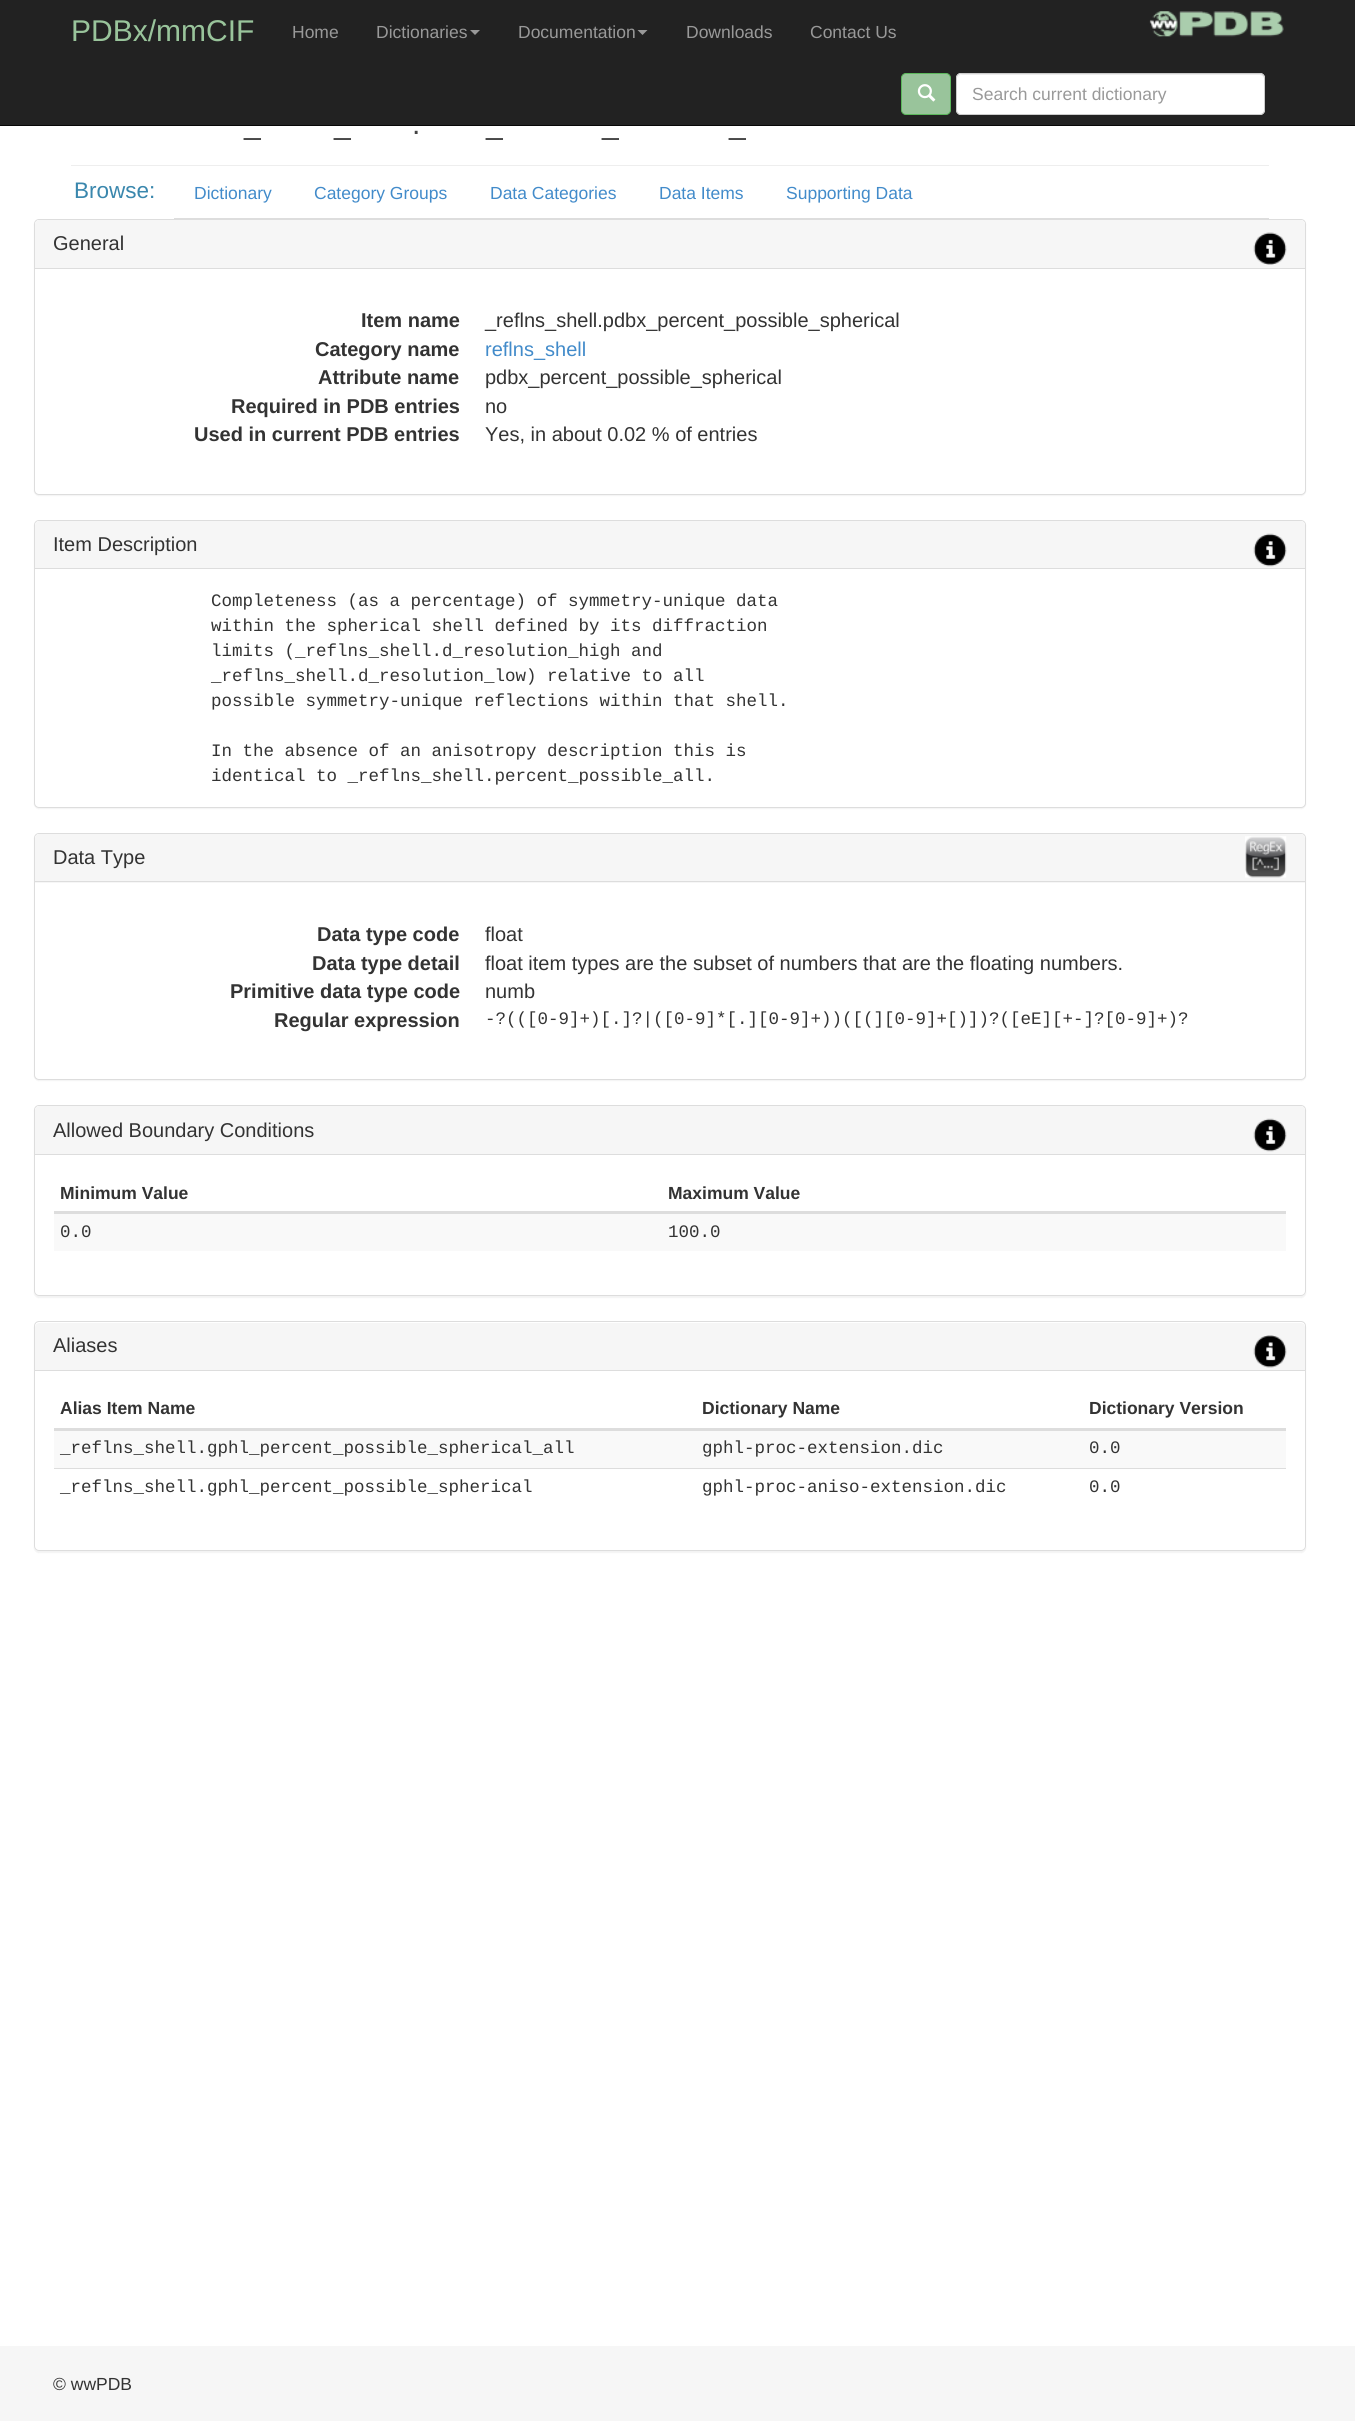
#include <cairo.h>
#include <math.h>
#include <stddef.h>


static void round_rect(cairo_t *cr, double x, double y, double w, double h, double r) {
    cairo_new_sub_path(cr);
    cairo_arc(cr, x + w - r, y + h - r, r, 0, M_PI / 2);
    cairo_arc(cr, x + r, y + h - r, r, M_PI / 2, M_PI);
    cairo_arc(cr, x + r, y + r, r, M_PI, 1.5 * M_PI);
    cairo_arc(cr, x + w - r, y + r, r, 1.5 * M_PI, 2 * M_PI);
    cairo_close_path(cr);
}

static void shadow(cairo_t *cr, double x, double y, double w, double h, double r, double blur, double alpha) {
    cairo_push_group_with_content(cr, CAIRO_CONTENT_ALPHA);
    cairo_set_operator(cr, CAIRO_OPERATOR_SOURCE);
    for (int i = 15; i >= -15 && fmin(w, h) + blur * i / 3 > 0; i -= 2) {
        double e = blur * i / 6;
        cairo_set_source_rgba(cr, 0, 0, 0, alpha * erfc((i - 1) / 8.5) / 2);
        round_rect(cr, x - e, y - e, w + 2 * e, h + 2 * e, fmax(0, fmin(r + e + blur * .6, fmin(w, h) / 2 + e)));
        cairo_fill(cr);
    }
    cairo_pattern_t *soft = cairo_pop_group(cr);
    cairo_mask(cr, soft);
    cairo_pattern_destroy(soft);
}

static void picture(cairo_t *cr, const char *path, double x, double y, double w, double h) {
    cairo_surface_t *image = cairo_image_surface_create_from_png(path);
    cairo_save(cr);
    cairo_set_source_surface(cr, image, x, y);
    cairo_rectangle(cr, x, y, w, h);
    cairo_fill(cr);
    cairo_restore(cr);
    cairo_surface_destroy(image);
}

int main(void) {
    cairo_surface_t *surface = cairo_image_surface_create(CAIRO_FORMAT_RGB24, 1355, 2421);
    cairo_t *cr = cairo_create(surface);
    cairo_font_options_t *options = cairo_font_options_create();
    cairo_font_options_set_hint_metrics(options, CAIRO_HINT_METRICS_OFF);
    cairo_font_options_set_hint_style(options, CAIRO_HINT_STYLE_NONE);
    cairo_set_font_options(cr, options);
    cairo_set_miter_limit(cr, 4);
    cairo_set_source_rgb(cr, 1, 1, 1);
    cairo_paint(cr);
    cairo_set_source_rgb(cr, 0.133, 0.133, 0.133);
    cairo_rectangle(cr, 0, 0, 1355, 125);
    cairo_fill(cr);
    cairo_set_source_rgb(cr, 0.031, 0.031, 0.031);
    cairo_rectangle(cr, 0, 125, 1355, 1);
    cairo_fill(cr);
    cairo_select_font_face(cr, "Liberation Sans", CAIRO_FONT_SLANT_NORMAL, CAIRO_FONT_WEIGHT_NORMAL);
    cairo_set_font_size(cr, 30);
    cairo_set_source_rgb(cr, 0.6, 0.769, 0.608);
    cairo_move_to(cr, 71, 41);
    cairo_show_text(cr, "PDBx/mmCIF");
    cairo_set_font_size(cr, 17.5);
    cairo_set_source_rgb(cr, 0.6, 0.6, 0.6);
    cairo_move_to(cr, 292, 38);
    cairo_show_text(cr, "Home");
    cairo_move_to(cr, 376, 38);
    cairo_show_text(cr, "Dictionaries");
    cairo_new_path(cr);
    cairo_move_to(cr, 470, 30);
    cairo_line_to(cr, 480, 30);
    cairo_line_to(cr, 475, 35);
    cairo_close_path(cr);
    cairo_fill(cr);
    cairo_move_to(cr, 518, 38);
    cairo_show_text(cr, "Documentation");
    cairo_new_path(cr);
    cairo_move_to(cr, 637.5, 30);
    cairo_line_to(cr, 647.5, 30);
    cairo_line_to(cr, 642.5, 35);
    cairo_close_path(cr);
    cairo_fill(cr);
    cairo_move_to(cr, 686, 38);
    cairo_show_text(cr, "Downloads");
    cairo_move_to(cr, 810, 38);
    cairo_show_text(cr, "Contact Us");
    picture(cr, "img1.png", 1149, 11, 135, 26);
    cairo_set_source_rgb(cr, 0.6, 0.769, 0.608);
    round_rect(cr, 901.5, 73.5, 49, 41, 4.5);
    cairo_fill_preserve(cr);
    cairo_set_source_rgb(cr, 0.361, 0.722, 0.361);
    cairo_set_line_width(cr, 1);
    cairo_stroke(cr);
    picture(cr, "img2.png", 917, 84, 19, 18);
    cairo_set_source_rgb(cr, 1, 1, 1);
    round_rect(cr, 956, 73, 309, 42, 5);
    cairo_fill(cr);
    cairo_set_source_rgb(cr, 0.925, 0.925, 0.925);
    cairo_new_path(cr);
    cairo_move_to(cr, 961, 75);
    cairo_line_to(cr, 1260, 75);
    cairo_curve_to(cr, 1262, 75, 1264, 77, 1264, 79);
    cairo_curve_to(cr, 1264, 76, 1263, 74, 1260, 74);
    cairo_line_to(cr, 962, 74);
    cairo_line_to(cr, 959, 75);
    cairo_curve_to(cr, 958, 76, 958, 78, 958, 79);
    cairo_curve_to(cr, 958, 77, 959, 75, 961, 75);
    cairo_close_path(cr);
    cairo_fill(cr);
    round_rect(cr, 956.5, 73.5, 308, 41, 4.5);
    cairo_set_source_rgb(cr, 0.8, 0.8, 0.8);
    cairo_stroke(cr);
    cairo_set_source_rgb(cr, 0.6, 0.6, 0.6);
    cairo_move_to(cr, 972, 100);
    cairo_show_text(cr, "Search current dictionary");
    cairo_set_source_rgb(cr, 0.933, 0.933, 0.933);
    cairo_rectangle(cr, 71, 165, 1198, 1);
    cairo_fill(cr);
    cairo_set_font_size(cr, 30);
    cairo_set_source_rgb(cr, 0.267, 0.267, 0.267);
    cairo_move_to(cr, 412, 134);
    cairo_show_text(cr, ".");
    cairo_move_to(cr, 244, 134);
    cairo_show_text(cr, "_");
    cairo_move_to(cr, 334, 134);
    cairo_show_text(cr, "_");
    cairo_move_to(cr, 486, 134);
    cairo_show_text(cr, "_");
    cairo_move_to(cr, 602, 134);
    cairo_show_text(cr, "_");
    cairo_move_to(cr, 729, 134);
    cairo_show_text(cr, "_");
    cairo_set_font_size(cr, 22.5);
    cairo_set_source_rgb(cr, 0.227, 0.529, 0.678);
    cairo_move_to(cr, 74, 198);
    cairo_show_text(cr, "Browse:");
    cairo_set_source_rgb(cr, 0, 0, 0);
    shadow(cr, 34, 220, 1272, 276, 5, 0.5, 0.05);
    cairo_set_source_rgb(cr, 0.867, 0.867, 0.867);
    cairo_rectangle(cr, 174, 218, 1095, 1);
    cairo_fill(cr);
    cairo_set_font_size(cr, 17.5);
    cairo_set_source_rgb(cr, 0.259, 0.545, 0.792);
    cairo_move_to(cr, 194, 199);
    cairo_show_text(cr, "Dictionary");
    cairo_move_to(cr, 314, 199);
    cairo_show_text(cr, "Category Groups");
    cairo_move_to(cr, 490, 199);
    cairo_show_text(cr, "Data Categories");
    cairo_move_to(cr, 659, 199);
    cairo_show_text(cr, "Data Items");
    cairo_move_to(cr, 786, 199);
    cairo_show_text(cr, "Supporting Data");
    cairo_set_source_rgb(cr, 1, 1, 1);
    round_rect(cr, 34.5, 219.5, 1271, 275, 4.5);
    cairo_fill_preserve(cr);
    cairo_set_source_rgb(cr, 0.867, 0.867, 0.867);
    cairo_stroke(cr);
    cairo_set_source_rgb(cr, 0.961, 0.961, 0.961);
    cairo_new_path(cr);
    cairo_move_to(cr, 39, 220);
    cairo_line_to(cr, 1301, 220);
    cairo_curve_to(cr, 1303, 220, 1305, 222, 1305, 224);
    cairo_line_to(cr, 1305, 269);
    cairo_line_to(cr, 35, 269);
    cairo_line_to(cr, 35, 224);
    cairo_curve_to(cr, 35, 222, 37, 220, 39, 220);
    cairo_close_path(cr);
    cairo_fill(cr);
    cairo_set_source_rgb(cr, 0.867, 0.867, 0.867);
    cairo_rectangle(cr, 35, 268, 1270, 1);
    cairo_fill(cr);
    cairo_set_font_size(cr, 20);
    cairo_set_source_rgb(cr, 0.2, 0.2, 0.2);
    cairo_move_to(cr, 53, 250);
    cairo_show_text(cr, "General");
    picture(cr, "img3.png", 1253, 232, 34, 33);
    cairo_select_font_face(cr, "Liberation Sans", CAIRO_FONT_SLANT_NORMAL, CAIRO_FONT_WEIGHT_BOLD);
    cairo_move_to(cr, 361, 327);
    cairo_show_text(cr, "Item name");
    cairo_select_font_face(cr, "Liberation Sans", CAIRO_FONT_SLANT_NORMAL, CAIRO_FONT_WEIGHT_NORMAL);
    cairo_move_to(cr, 485, 327);
    cairo_show_text(cr, "_reflns_shell.pdbx_percent_possible_spherical");
    cairo_select_font_face(cr, "Liberation Sans", CAIRO_FONT_SLANT_NORMAL, CAIRO_FONT_WEIGHT_BOLD);
    cairo_move_to(cr, 315, 356);
    cairo_show_text(cr, "Category name");
    cairo_select_font_face(cr, "Liberation Sans", CAIRO_FONT_SLANT_NORMAL, CAIRO_FONT_WEIGHT_NORMAL);
    cairo_set_source_rgb(cr, 0.259, 0.545, 0.792);
    cairo_move_to(cr, 485, 356);
    cairo_show_text(cr, "reflns_shell");
    cairo_select_font_face(cr, "Liberation Sans", CAIRO_FONT_SLANT_NORMAL, CAIRO_FONT_WEIGHT_BOLD);
    cairo_set_source_rgb(cr, 0.2, 0.2, 0.2);
    cairo_move_to(cr, 318, 384);
    cairo_show_text(cr, "Attribute name");
    cairo_select_font_face(cr, "Liberation Sans", CAIRO_FONT_SLANT_NORMAL, CAIRO_FONT_WEIGHT_NORMAL);
    cairo_move_to(cr, 485, 384);
    cairo_show_text(cr, "pdbx_percent_possible_spherical");
    cairo_select_font_face(cr, "Liberation Sans", CAIRO_FONT_SLANT_NORMAL, CAIRO_FONT_WEIGHT_BOLD);
    cairo_move_to(cr, 231, 413);
    cairo_show_text(cr, "Required in PDB entries");
    cairo_select_font_face(cr, "Liberation Sans", CAIRO_FONT_SLANT_NORMAL, CAIRO_FONT_WEIGHT_NORMAL);
    cairo_move_to(cr, 485, 413);
    cairo_show_text(cr, "no");
    cairo_select_font_face(cr, "Liberation Sans", CAIRO_FONT_SLANT_NORMAL, CAIRO_FONT_WEIGHT_BOLD);
    cairo_move_to(cr, 194, 441);
    cairo_show_text(cr, "Used in current PDB entries");
    cairo_select_font_face(cr, "Liberation Sans", CAIRO_FONT_SLANT_NORMAL, CAIRO_FONT_WEIGHT_NORMAL);
    cairo_move_to(cr, 485, 441);
    cairo_show_text(cr, "Yes, in about 0.02 % of entries");
    cairo_set_source_rgb(cr, 0, 0, 0);
    shadow(cr, 34, 521, 1272, 288, 5, 0.5, 0.05);
    cairo_set_source_rgb(cr, 1, 1, 1);
    round_rect(cr, 34.5, 520.5, 1271, 287, 4.5);
    cairo_fill_preserve(cr);
    cairo_set_source_rgb(cr, 0.867, 0.867, 0.867);
    cairo_stroke(cr);
    cairo_set_source_rgb(cr, 0.961, 0.961, 0.961);
    cairo_new_path(cr);
    cairo_move_to(cr, 39, 521);
    cairo_line_to(cr, 1301, 521);
    cairo_curve_to(cr, 1303, 521, 1305, 523, 1305, 525);
    cairo_line_to(cr, 1305, 569);
    cairo_line_to(cr, 35, 569);
    cairo_line_to(cr, 35, 525);
    cairo_curve_to(cr, 35, 523, 37, 521, 39, 521);
    cairo_close_path(cr);
    cairo_fill(cr);
    cairo_set_source_rgb(cr, 0.867, 0.867, 0.867);
    cairo_rectangle(cr, 35, 568, 1270, 1);
    cairo_fill(cr);
    cairo_set_source_rgb(cr, 0.2, 0.2, 0.2);
    cairo_move_to(cr, 53, 551);
    cairo_show_text(cr, "Item Description");
    picture(cr, "img4.png", 1253, 533, 34, 34);
    cairo_select_font_face(cr, "Liberation Mono", CAIRO_FONT_SLANT_NORMAL, CAIRO_FONT_WEIGHT_NORMAL);
    cairo_set_font_size(cr, 17.5);
    cairo_move_to(cr, 211, 606);
    cairo_show_text(cr, "Completeness (as a percentage) of symmetry-unique data");
    cairo_move_to(cr, 211, 631);
    cairo_show_text(cr, "within the spherical shell defined by its diffraction");
    cairo_move_to(cr, 211, 656);
    cairo_show_text(cr, "limits (_reflns_shell.d_resolution_high and");
    cairo_move_to(cr, 211, 681);
    cairo_show_text(cr, "_reflns_shell.d_resolution_low) relative to all");
    cairo_move_to(cr, 211, 706);
    cairo_show_text(cr, "possible symmetry-unique reflections within that shell.");
    cairo_move_to(cr, 211, 756);
    cairo_show_text(cr, "In the absence of an anisotropy description this is");
    cairo_move_to(cr, 211, 781);
    cairo_show_text(cr, "identical to _reflns_shell.percent_possible_all.");
    cairo_set_source_rgb(cr, 0, 0, 0);
    shadow(cr, 34, 834, 1272, 247, 5, 0.5, 0.05);
    cairo_set_source_rgb(cr, 1, 1, 1);
    round_rect(cr, 34.5, 833.5, 1271, 246, 4.5);
    cairo_fill_preserve(cr);
    cairo_set_source_rgb(cr, 0.867, 0.867, 0.867);
    cairo_stroke(cr);
    cairo_set_source_rgb(cr, 0.961, 0.961, 0.961);
    cairo_new_path(cr);
    cairo_move_to(cr, 39, 834);
    cairo_line_to(cr, 1301, 834);
    cairo_curve_to(cr, 1303, 834, 1305, 836, 1305, 838);
    cairo_line_to(cr, 1305, 883);
    cairo_line_to(cr, 35, 883);
    cairo_line_to(cr, 35, 838);
    cairo_curve_to(cr, 35, 836, 37, 834, 39, 834);
    cairo_close_path(cr);
    cairo_fill(cr);
    cairo_set_source_rgb(cr, 0.867, 0.867, 0.867);
    cairo_rectangle(cr, 35, 881, 1270, 1);
    cairo_fill(cr);
    cairo_select_font_face(cr, "Liberation Sans", CAIRO_FONT_SLANT_NORMAL, CAIRO_FONT_WEIGHT_NORMAL);
    cairo_set_font_size(cr, 20);
    cairo_set_source_rgb(cr, 0.2, 0.2, 0.2);
    cairo_move_to(cr, 53, 864);
    cairo_show_text(cr, "Data Type");
    picture(cr, "img5.png", 1245, 836, 42, 42);
    cairo_select_font_face(cr, "Liberation Sans", CAIRO_FONT_SLANT_NORMAL, CAIRO_FONT_WEIGHT_BOLD);
    cairo_move_to(cr, 317, 941);
    cairo_show_text(cr, "Data type code");
    cairo_select_font_face(cr, "Liberation Sans", CAIRO_FONT_SLANT_NORMAL, CAIRO_FONT_WEIGHT_NORMAL);
    cairo_move_to(cr, 485, 941);
    cairo_show_text(cr, "float");
    cairo_select_font_face(cr, "Liberation Sans", CAIRO_FONT_SLANT_NORMAL, CAIRO_FONT_WEIGHT_BOLD);
    cairo_move_to(cr, 312, 970);
    cairo_show_text(cr, "Data type detail");
    cairo_select_font_face(cr, "Liberation Sans", CAIRO_FONT_SLANT_NORMAL, CAIRO_FONT_WEIGHT_NORMAL);
    cairo_move_to(cr, 485, 970);
    cairo_show_text(cr, "float item types are the subset of numbers that are the floating numbers.");
    cairo_select_font_face(cr, "Liberation Sans", CAIRO_FONT_SLANT_NORMAL, CAIRO_FONT_WEIGHT_BOLD);
    cairo_move_to(cr, 230, 998);
    cairo_show_text(cr, "Primitive data type code");
    cairo_select_font_face(cr, "Liberation Sans", CAIRO_FONT_SLANT_NORMAL, CAIRO_FONT_WEIGHT_NORMAL);
    cairo_move_to(cr, 485, 998);
    cairo_show_text(cr, "numb");
    cairo_select_font_face(cr, "Liberation Sans", CAIRO_FONT_SLANT_NORMAL, CAIRO_FONT_WEIGHT_BOLD);
    cairo_move_to(cr, 274, 1027);
    cairo_show_text(cr, "Regular expression");
    cairo_select_font_face(cr, "Liberation Mono", CAIRO_FONT_SLANT_NORMAL, CAIRO_FONT_WEIGHT_NORMAL);
    cairo_set_font_size(cr, 17.5);
    cairo_move_to(cr, 485, 1024);
    cairo_show_text(cr, "-?(([0-9]+)[.]?|([0-9]*[.][0-9]+))([(][0-9]+[)])?([eE][+-]?[0-9]+)?");
    cairo_save(cr);
    cairo_set_fill_rule(cr, CAIRO_FILL_RULE_EVEN_ODD);
    cairo_new_path(cr);
    cairo_move_to(cr, 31, 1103);
    cairo_line_to(cr, 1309, 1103);
    cairo_line_to(cr, 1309, 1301);
    cairo_line_to(cr, 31, 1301);
    cairo_close_path(cr);
    cairo_move_to(cr, 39, 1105);
    cairo_line_to(cr, 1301, 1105);
    cairo_curve_to(cr, 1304, 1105, 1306, 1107, 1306, 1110);
    cairo_line_to(cr, 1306, 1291);
    cairo_curve_to(cr, 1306, 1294, 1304, 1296, 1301, 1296);
    cairo_line_to(cr, 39, 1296);
    cairo_curve_to(cr, 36, 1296, 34, 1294, 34, 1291);
    cairo_line_to(cr, 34, 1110);
    cairo_curve_to(cr, 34, 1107, 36, 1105, 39, 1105);
    cairo_close_path(cr);
    cairo_clip(cr);
    cairo_set_source_rgb(cr, 0, 0, 0);
    shadow(cr, 34, 1106, 1272, 192, 5, 0.5, 0.05);
    cairo_restore(cr);
    round_rect(cr, 34.5, 1105.5, 1271, 190, 4.5);
    cairo_set_source_rgb(cr, 0.867, 0.867, 0.867);
    cairo_stroke(cr);
    cairo_set_source_rgb(cr, 0.961, 0.961, 0.961);
    cairo_new_path(cr);
    cairo_move_to(cr, 39, 1106);
    cairo_line_to(cr, 1301, 1106);
    cairo_curve_to(cr, 1303, 1106, 1305, 1108, 1305, 1110);
    cairo_line_to(cr, 1305, 1155);
    cairo_line_to(cr, 35, 1155);
    cairo_line_to(cr, 35, 1110);
    cairo_curve_to(cr, 35, 1108, 37, 1106, 39, 1106);
    cairo_close_path(cr);
    cairo_fill(cr);
    cairo_set_source_rgb(cr, 0.867, 0.867, 0.867);
    cairo_rectangle(cr, 35, 1154, 1270, 1);
    cairo_fill(cr);
    cairo_select_font_face(cr, "Liberation Sans", CAIRO_FONT_SLANT_NORMAL, CAIRO_FONT_WEIGHT_NORMAL);
    cairo_set_font_size(cr, 20);
    cairo_set_source_rgb(cr, 0.2, 0.2, 0.2);
    cairo_move_to(cr, 53, 1137);
    cairo_show_text(cr, "Allowed Boundary Conditions");
    picture(cr, "img4.png", 1253, 1118, 34, 34);
    cairo_select_font_face(cr, "Liberation Sans", CAIRO_FONT_SLANT_NORMAL, CAIRO_FONT_WEIGHT_BOLD);
    cairo_set_font_size(cr, 17.5);
    cairo_move_to(cr, 60, 1199);
    cairo_show_text(cr, "Minimum Value");
    cairo_set_source_rgb(cr, 0.867, 0.867, 0.867);
    cairo_rectangle(cr, 54, 1211, 1232, 3);
    cairo_fill(cr);
    cairo_set_source_rgb(cr, 0.2, 0.2, 0.2);
    cairo_move_to(cr, 668, 1199);
    cairo_show_text(cr, "Maximum Value");
    cairo_set_source_rgb(cr, 0.976, 0.976, 0.976);
    cairo_rectangle(cr, 54, 1214, 1232, 37);
    cairo_fill(cr);
    cairo_select_font_face(cr, "Liberation Mono", CAIRO_FONT_SLANT_NORMAL, CAIRO_FONT_WEIGHT_NORMAL);
    cairo_set_source_rgb(cr, 0.2, 0.2, 0.2);
    cairo_move_to(cr, 60, 1237);
    cairo_show_text(cr, "0.0");
    cairo_move_to(cr, 668, 1237);
    cairo_show_text(cr, "100.0");
    cairo_save(cr);
    cairo_set_fill_rule(cr, CAIRO_FILL_RULE_EVEN_ODD);
    cairo_new_path(cr);
    cairo_move_to(cr, 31, 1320);
    cairo_line_to(cr, 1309, 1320);
    cairo_line_to(cr, 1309, 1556);
    cairo_line_to(cr, 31, 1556);
    cairo_close_path(cr);
    cairo_move_to(cr, 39, 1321);
    cairo_line_to(cr, 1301, 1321);
    cairo_curve_to(cr, 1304, 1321, 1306, 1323, 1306, 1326);
    cairo_line_to(cr, 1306, 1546);
    cairo_curve_to(cr, 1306, 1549, 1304, 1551, 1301, 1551);
    cairo_line_to(cr, 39, 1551);
    cairo_curve_to(cr, 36, 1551, 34, 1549, 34, 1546);
    cairo_line_to(cr, 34, 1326);
    cairo_curve_to(cr, 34, 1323, 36, 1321, 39, 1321);
    cairo_close_path(cr);
    cairo_clip(cr);
    cairo_set_source_rgb(cr, 0, 0, 0);
    shadow(cr, 34, 1323, 1272, 230, 5, 0.5, 0.05);
    cairo_restore(cr);
    round_rect(cr, 34.5, 1321.5, 1271, 229, 4.5);
    cairo_set_source_rgb(cr, 0.867, 0.867, 0.867);
    cairo_stroke(cr);
    cairo_set_source_rgb(cr, 0.961, 0.961, 0.961);
    cairo_new_path(cr);
    cairo_move_to(cr, 39, 1323);
    cairo_line_to(cr, 1301, 1323);
    cairo_curve_to(cr, 1303, 1323, 1305, 1325, 1305, 1327);
    cairo_line_to(cr, 1305, 1371);
    cairo_line_to(cr, 35, 1371);
    cairo_line_to(cr, 35, 1327);
    cairo_curve_to(cr, 35, 1325, 37, 1323, 39, 1323);
    cairo_close_path(cr);
    cairo_fill(cr);
    cairo_set_source_rgb(cr, 0.867, 0.867, 0.867);
    cairo_rectangle(cr, 35, 1370, 1270, 1);
    cairo_fill(cr);
    cairo_select_font_face(cr, "Liberation Sans", CAIRO_FONT_SLANT_NORMAL, CAIRO_FONT_WEIGHT_NORMAL);
    cairo_set_font_size(cr, 20);
    cairo_set_source_rgb(cr, 0.2, 0.2, 0.2);
    cairo_move_to(cr, 53, 1352);
    cairo_show_text(cr, "Aliases");
    picture(cr, "img6.png", 1253, 1335, 34, 33);
    cairo_select_font_face(cr, "Liberation Sans", CAIRO_FONT_SLANT_NORMAL, CAIRO_FONT_WEIGHT_BOLD);
    cairo_set_font_size(cr, 17.5);
    cairo_move_to(cr, 60, 1414);
    cairo_show_text(cr, "Alias Item Name");
    cairo_move_to(cr, 702, 1414);
    cairo_show_text(cr, "Dictionary Name");
    cairo_set_source_rgb(cr, 0.867, 0.867, 0.867);
    cairo_rectangle(cr, 54, 1428, 1232, 3);
    cairo_fill(cr);
    cairo_set_source_rgb(cr, 0.2, 0.2, 0.2);
    cairo_move_to(cr, 1089, 1414);
    cairo_show_text(cr, "Dictionary Version");
    cairo_set_source_rgb(cr, 0.976, 0.976, 0.976);
    cairo_rectangle(cr, 54, 1431, 1232, 37);
    cairo_fill(cr);
    cairo_select_font_face(cr, "Liberation Mono", CAIRO_FONT_SLANT_NORMAL, CAIRO_FONT_WEIGHT_NORMAL);
    cairo_set_source_rgb(cr, 0.2, 0.2, 0.2);
    cairo_move_to(cr, 60, 1453);
    cairo_show_text(cr, "_reflns_shell.gphl_percent_possible_spherical_all");
    cairo_move_to(cr, 702, 1453);
    cairo_show_text(cr, "gphl-proc-extension.dic");
    cairo_move_to(cr, 1089, 1453);
    cairo_show_text(cr, "0.0");
    cairo_move_to(cr, 60, 1492);
    cairo_show_text(cr, "_reflns_shell.gphl_percent_possible_spherical");
    cairo_move_to(cr, 702, 1492);
    cairo_show_text(cr, "gphl-proc-aniso-extension.dic");
    cairo_set_source_rgb(cr, 0.867, 0.867, 0.867);
    cairo_rectangle(cr, 54, 1468, 1232, 1);
    cairo_fill(cr);
    cairo_set_source_rgb(cr, 0.2, 0.2, 0.2);
    cairo_move_to(cr, 1089, 1492);
    cairo_show_text(cr, "0.0");
    cairo_set_source_rgb(cr, 0.961, 0.961, 0.961);
    cairo_rectangle(cr, 0, 2346, 1355, 75);
    cairo_fill(cr);
    cairo_select_font_face(cr, "Liberation Sans", CAIRO_FONT_SLANT_NORMAL, CAIRO_FONT_WEIGHT_NORMAL);
    cairo_set_source_rgb(cr, 0.2, 0.2, 0.2);
    cairo_move_to(cr, 53, 2390);
    cairo_show_text(cr, "© wwPDB");
    cairo_surface_write_to_png(surface, "page.png");
    cairo_font_options_destroy(options);
    cairo_destroy(cr);
    cairo_surface_destroy(surface);
    return 0;
}
